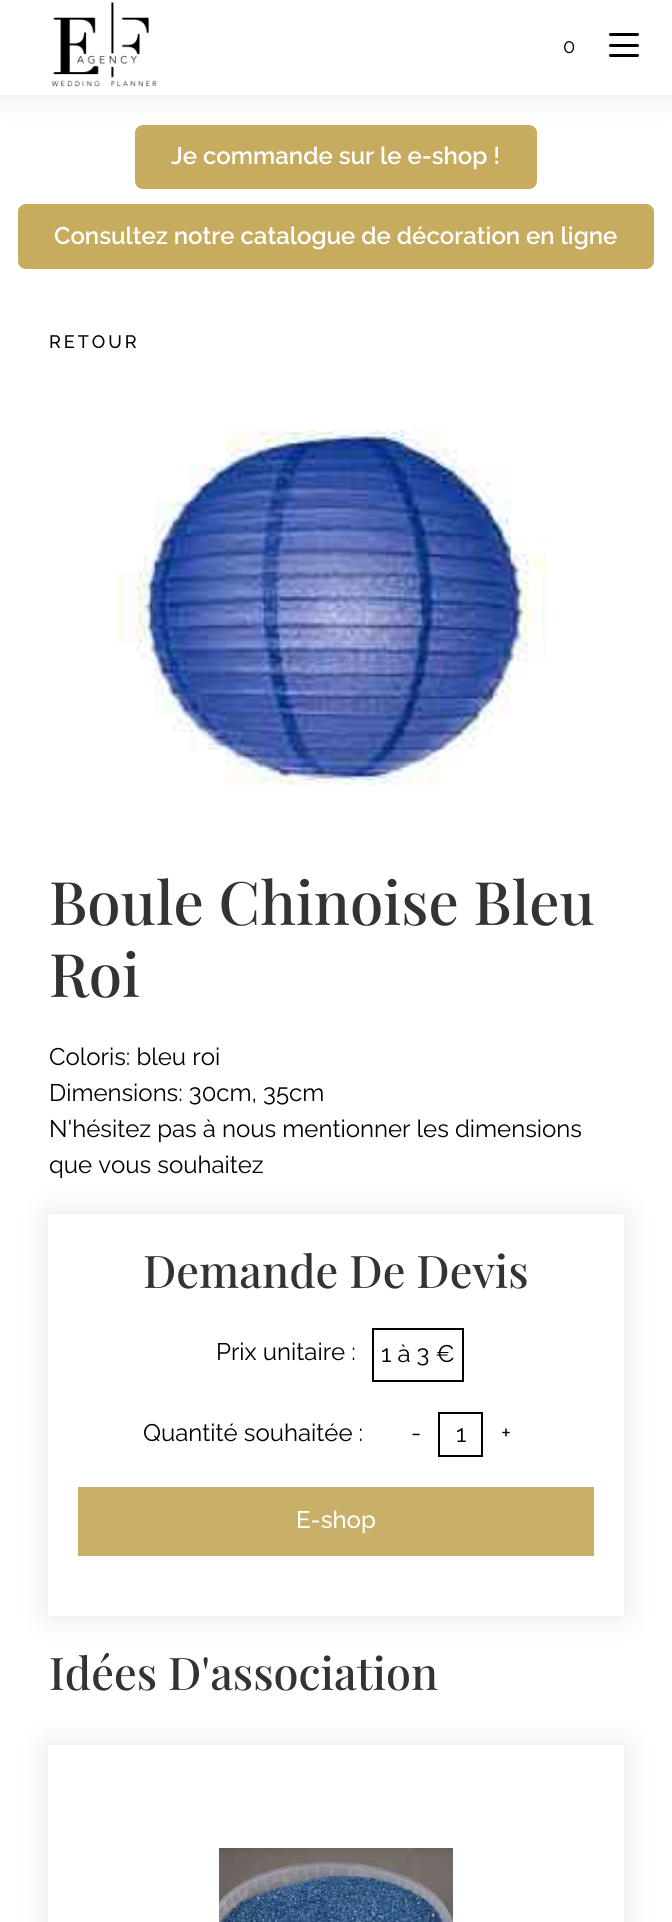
#include <cairo.h>
#include <math.h>
#include <stddef.h>


static void spaced_text(cairo_t *cr, double x, double y, const char *s, double letter, double word) {
    cairo_move_to(cr, x, y);
    while (*s) {
        char ch[5] = {0};
        int n = 0;
        do ch[n++] = *s++; while ((*s & 0xC0) == 0x80);
        cairo_show_text(cr, ch);
        cairo_rel_move_to(cr, letter + word * (*ch == ' '), 0);
    }
}

static void round_rect(cairo_t *cr, double x, double y, double w, double h, double r) {
    cairo_new_sub_path(cr);
    cairo_arc(cr, x + w - r, y + h - r, r, 0, M_PI / 2);
    cairo_arc(cr, x + r, y + h - r, r, M_PI / 2, M_PI);
    cairo_arc(cr, x + r, y + r, r, M_PI, 1.5 * M_PI);
    cairo_arc(cr, x + w - r, y + r, r, 1.5 * M_PI, 2 * M_PI);
    cairo_close_path(cr);
}

static void shadow(cairo_t *cr, double x, double y, double w, double h, double r, double blur, double alpha) {
    cairo_push_group_with_content(cr, CAIRO_CONTENT_ALPHA);
    cairo_set_operator(cr, CAIRO_OPERATOR_SOURCE);
    for (int i = 15; i >= -15 && fmin(w, h) + blur * i / 3 > 0; i -= 2) {
        double e = blur * i / 6;
        cairo_set_source_rgba(cr, 0, 0, 0, alpha * erfc((i - 1) / 8.5) / 2);
        round_rect(cr, x - e, y - e, w + 2 * e, h + 2 * e, fmax(0, fmin(r + e + blur * .6, fmin(w, h) / 2 + e)));
        cairo_fill(cr);
    }
    cairo_pattern_t *soft = cairo_pop_group(cr);
    cairo_mask(cr, soft);
    cairo_pattern_destroy(soft);
}

static void picture(cairo_t *cr, const char *path, double x, double y, double w, double h) {
    cairo_surface_t *image = cairo_image_surface_create_from_png(path);
    cairo_save(cr);
    cairo_set_source_surface(cr, image, x, y);
    cairo_rectangle(cr, x, y, w, h);
    cairo_fill(cr);
    cairo_restore(cr);
    cairo_surface_destroy(image);
}

int main(void) {
    cairo_surface_t *surface = cairo_image_surface_create(CAIRO_FORMAT_RGB24, 672, 1922);
    cairo_t *cr = cairo_create(surface);
    cairo_font_options_t *options = cairo_font_options_create();
    cairo_font_options_set_hint_metrics(options, CAIRO_HINT_METRICS_OFF);
    cairo_font_options_set_hint_style(options, CAIRO_HINT_STYLE_NONE);
    cairo_set_font_options(cr, options);
    cairo_set_miter_limit(cr, 4);
    cairo_set_source_rgb(cr, 1, 1, 1);
    cairo_paint(cr);
    cairo_set_source_rgb(cr, 0.78, 0.671, 0.369);
    round_rect(cr, 135, 125, 402, 64, 8);
    cairo_fill(cr);
    cairo_set_source_rgb(cr, 0, 0, 0);
    shadow(cr, 0, 0, 672, 95, 0, 15, 0.1);
    cairo_set_source_rgb(cr, 1, 1, 1);
    cairo_rectangle(cr, 0, 0, 672, 95);
    cairo_fill(cr);
    picture(cr, "img1.png", 51, 1, 106, 86);
    cairo_select_font_face(cr, "Raleway", CAIRO_FONT_SLANT_NORMAL, CAIRO_FONT_WEIGHT_NORMAL);
    cairo_set_font_size(cr, 20);
    cairo_set_source_rgb(cr, 0, 0, 0);
    spaced_text(cr, 563, 53, "0", 3, 0);
    round_rect(cr, 609, 54, 30, 3, 1.5);
    cairo_fill(cr);
    round_rect(cr, 609, 33, 30, 3, 1.5);
    cairo_fill(cr);
    round_rect(cr, 609, 44, 30, 3, 1.5);
    cairo_fill(cr);
    cairo_select_font_face(cr, "Raleway SemiBold", CAIRO_FONT_SLANT_NORMAL, CAIRO_FONT_WEIGHT_NORMAL);
    cairo_set_font_size(cr, 24);
    cairo_set_source_rgb(cr, 1, 1, 1);
    cairo_move_to(cr, 171, 164);
    cairo_show_text(cr, "Je commande sur le e-shop !");
    cairo_set_source_rgb(cr, 0.78, 0.671, 0.369);
    round_rect(cr, 18, 204, 636, 65, 8);
    cairo_fill(cr);
    cairo_set_source_rgb(cr, 1, 1, 1);
    cairo_move_to(cr, 54, 244);
    cairo_show_text(cr, "Consultez notre catalogue de décoration en ligne");
    cairo_select_font_face(cr, "Raleway Medium", CAIRO_FONT_SLANT_NORMAL, CAIRO_FONT_WEIGHT_NORMAL);
    cairo_set_font_size(cr, 18);
    cairo_set_source_rgb(cr, 0, 0, 0);
    spaced_text(cr, 49, 348, "RETOUR", 3, 0);
    picture(cr, "img2.png", 118, 429, 430, 358);
    cairo_select_font_face(cr, "Playfair Display Medium", CAIRO_FONT_SLANT_NORMAL, CAIRO_FONT_WEIGHT_NORMAL);
    cairo_set_font_size(cr, 60);
    cairo_set_source_rgb(cr, 0.2, 0.2, 0.2);
    cairo_move_to(cr, 49, 925);
    cairo_show_text(cr, "Boule Chinoise Bleu");
    cairo_move_to(cr, 49, 997);
    cairo_show_text(cr, "Roi");
    cairo_select_font_face(cr, "Raleway", CAIRO_FONT_SLANT_NORMAL, CAIRO_FONT_WEIGHT_NORMAL);
    cairo_set_font_size(cr, 24);
    cairo_set_source_rgb(cr, 0, 0, 0);
    cairo_move_to(cr, 49, 1065);
    cairo_show_text(cr, "Coloris: bleu roi");
    cairo_move_to(cr, 49, 1101);
    cairo_show_text(cr, "Dimensions: 30cm, 35cm");
    cairo_move_to(cr, 49, 1137);
    cairo_show_text(cr, "N'hésitez pas à nous mentionner les dimensions");
    cairo_save(cr);
    cairo_set_fill_rule(cr, CAIRO_FILL_RULE_EVEN_ODD);
    cairo_new_path(cr);
    cairo_move_to(cr, 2, 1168);
    cairo_line_to(cr, 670, 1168);
    cairo_line_to(cr, 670, 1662);
    cairo_line_to(cr, 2, 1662);
    cairo_close_path(cr);
    cairo_move_to(cr, 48, 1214);
    cairo_line_to(cr, 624, 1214);
    cairo_line_to(cr, 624, 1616);
    cairo_line_to(cr, 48, 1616);
    cairo_close_path(cr);
    cairo_clip(cr);
    cairo_set_source_rgb(cr, 0, 0, 0);
    shadow(cr, 48, 1214, 576, 402, 0, 15, 0.1);
    cairo_restore(cr);
    cairo_move_to(cr, 49, 1173);
    cairo_show_text(cr, "que vous souhaitez");
    cairo_select_font_face(cr, "Playfair Display Medium", CAIRO_FONT_SLANT_NORMAL, CAIRO_FONT_WEIGHT_NORMAL);
    cairo_set_font_size(cr, 45);
    cairo_set_source_rgb(cr, 0.2, 0.2, 0.2);
    cairo_move_to(cr, 143, 1288);
    cairo_show_text(cr, "Demande De Devis");
    cairo_select_font_face(cr, "Raleway", CAIRO_FONT_SLANT_NORMAL, CAIRO_FONT_WEIGHT_NORMAL);
    cairo_set_font_size(cr, 24);
    cairo_set_source_rgb(cr, 0, 0, 0);
    cairo_move_to(cr, 216, 1360);
    cairo_show_text(cr, "Prix unitaire :");
    cairo_rectangle(cr, 373, 1329, 90, 52);
    cairo_stroke(cr);
    cairo_move_to(cr, 381, 1362);
    cairo_show_text(cr, "1 à 3 €");
    cairo_move_to(cr, 143, 1441);
    cairo_show_text(cr, "Quantité souhaitée :");
    cairo_move_to(cr, 411, 1441);
    cairo_show_text(cr, "-");
    cairo_rectangle(cr, 439, 1413, 43, 43);
    cairo_stroke(cr);
    cairo_move_to(cr, 456, 1442);
    cairo_show_text(cr, "1");
    cairo_move_to(cr, 501, 1441);
    cairo_show_text(cr, "+");
    cairo_set_source_rgb(cr, 0.788, 0.69, 0.412);
    cairo_rectangle(cr, 78, 1487, 516, 69);
    cairo_fill(cr);
    cairo_select_font_face(cr, "Raleway Medium", CAIRO_FONT_SLANT_NORMAL, CAIRO_FONT_WEIGHT_NORMAL);
    cairo_set_source_rgb(cr, 1, 1, 1);
    cairo_move_to(cr, 296, 1528);
    cairo_show_text(cr, "E-shop");
    cairo_select_font_face(cr, "Playfair Display Medium", CAIRO_FONT_SLANT_NORMAL, CAIRO_FONT_WEIGHT_NORMAL);
    cairo_set_font_size(cr, 45);
    cairo_set_source_rgb(cr, 0.2, 0.2, 0.2);
    cairo_move_to(cr, 49, 1690);
    cairo_show_text(cr, "Idées D'association");
    cairo_save(cr);
    cairo_set_fill_rule(cr, CAIRO_FILL_RULE_EVEN_ODD);
    cairo_new_path(cr);
    cairo_move_to(cr, 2, 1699);
    cairo_line_to(cr, 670, 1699);
    cairo_line_to(cr, 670, 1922);
    cairo_line_to(cr, 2, 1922);
    cairo_close_path(cr);
    cairo_move_to(cr, 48, 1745);
    cairo_line_to(cr, 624, 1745);
    cairo_line_to(cr, 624, 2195);
    cairo_line_to(cr, 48, 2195);
    cairo_close_path(cr);
    cairo_clip(cr);
    cairo_set_source_rgb(cr, 0, 0, 0);
    shadow(cr, 48, 1745, 576, 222, 0, 15, 0.1);
    cairo_restore(cr);
    picture(cr, "img3.png", 219, 1848, 234, 74);
    cairo_surface_write_to_png(surface, "page.png");
    cairo_font_options_destroy(options);
    cairo_destroy(cr);
    cairo_surface_destroy(surface);
    return 0;
}
